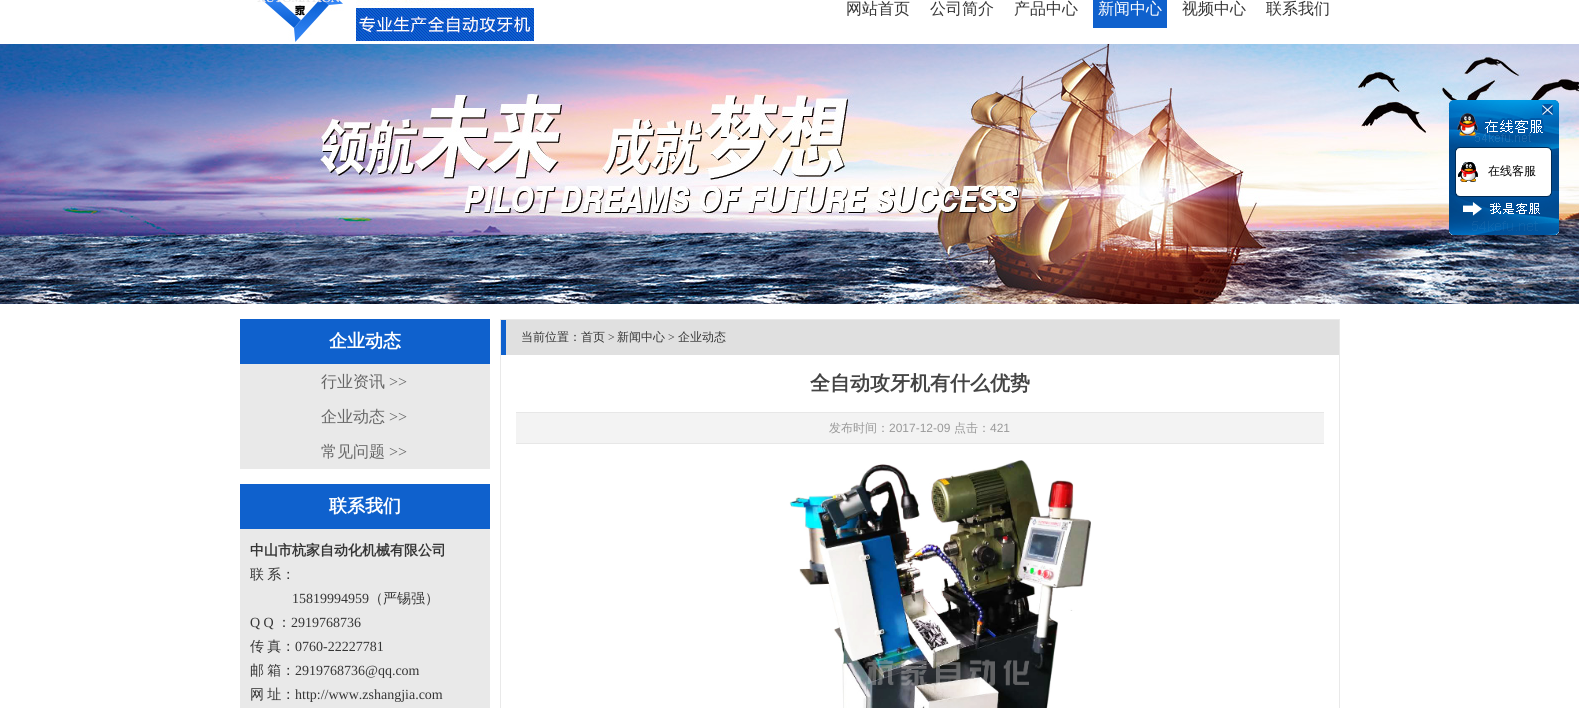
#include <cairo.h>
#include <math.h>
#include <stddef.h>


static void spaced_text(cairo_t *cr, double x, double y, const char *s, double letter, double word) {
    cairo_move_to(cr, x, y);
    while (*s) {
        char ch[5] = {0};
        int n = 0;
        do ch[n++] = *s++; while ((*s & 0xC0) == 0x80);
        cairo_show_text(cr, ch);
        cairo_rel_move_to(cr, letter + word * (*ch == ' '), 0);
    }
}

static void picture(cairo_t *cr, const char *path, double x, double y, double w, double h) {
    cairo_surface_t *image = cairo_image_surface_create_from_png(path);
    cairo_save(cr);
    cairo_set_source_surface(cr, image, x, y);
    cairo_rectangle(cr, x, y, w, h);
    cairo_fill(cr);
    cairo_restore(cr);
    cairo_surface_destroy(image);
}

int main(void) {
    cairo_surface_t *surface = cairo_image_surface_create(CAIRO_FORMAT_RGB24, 1579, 708);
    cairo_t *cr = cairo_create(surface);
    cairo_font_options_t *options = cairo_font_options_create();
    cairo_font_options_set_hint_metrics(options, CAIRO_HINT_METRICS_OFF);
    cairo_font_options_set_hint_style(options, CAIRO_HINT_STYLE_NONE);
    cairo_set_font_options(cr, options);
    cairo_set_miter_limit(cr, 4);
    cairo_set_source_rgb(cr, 1, 1, 1);
    cairo_paint(cr);
    picture(cr, "img1.png", 257, 0, 277, 42);
    cairo_select_font_face(cr, "WenQuanYi Zen Hei Medium", CAIRO_FONT_SLANT_NORMAL, CAIRO_FONT_WEIGHT_NORMAL);
    cairo_set_font_size(cr, 16);
    cairo_set_source_rgb(cr, 0.208, 0.208, 0.208);
    cairo_move_to(cr, 846, 14);
    cairo_show_text(cr, "网站首页");
    cairo_move_to(cr, 930, 14);
    cairo_show_text(cr, "公司简介");
    cairo_move_to(cr, 1014, 14);
    cairo_show_text(cr, "产品中心");
    cairo_set_source_rgb(cr, 0.059, 0.38, 0.804);
    cairo_rectangle(cr, 1093, 0, 74, 28);
    cairo_fill(cr);
    cairo_set_source_rgb(cr, 1, 1, 1);
    cairo_move_to(cr, 1098, 14);
    cairo_show_text(cr, "新闻中心");
    cairo_set_source_rgb(cr, 0.208, 0.208, 0.208);
    cairo_move_to(cr, 1182, 14);
    cairo_show_text(cr, "视频中心");
    cairo_move_to(cr, 1266, 14);
    cairo_show_text(cr, "联系我们");
    picture(cr, "img2.png", 0, 44, 1579, 260);
    cairo_set_source_rgb(cr, 0.059, 0.38, 0.804);
    cairo_rectangle(cr, 240, 319, 250, 45);
    cairo_fill(cr);
    cairo_select_font_face(cr, "WenQuanYi Zen Hei", CAIRO_FONT_SLANT_NORMAL, CAIRO_FONT_WEIGHT_BOLD);
    cairo_set_font_size(cr, 18);
    cairo_set_source_rgb(cr, 1, 1, 1);
    cairo_move_to(cr, 329, 347);
    cairo_show_text(cr, "企业动态");
    cairo_set_source_rgb(cr, 0.914, 0.914, 0.914);
    cairo_rectangle(cr, 240, 364, 250, 105);
    cairo_fill(cr);
    cairo_select_font_face(cr, "WenQuanYi Zen Hei Medium", CAIRO_FONT_SLANT_NORMAL, CAIRO_FONT_WEIGHT_NORMAL);
    cairo_set_font_size(cr, 16);
    cairo_set_source_rgb(cr, 0.4, 0.4, 0.4);
    cairo_move_to(cr, 321, 387);
    cairo_show_text(cr, "行业资讯");
    cairo_select_font_face(cr, "Liberation Serif", CAIRO_FONT_SLANT_NORMAL, CAIRO_FONT_WEIGHT_NORMAL);
    cairo_move_to(cr, 389, 387);
    cairo_show_text(cr, ">>");
    cairo_select_font_face(cr, "WenQuanYi Zen Hei Medium", CAIRO_FONT_SLANT_NORMAL, CAIRO_FONT_WEIGHT_NORMAL);
    cairo_move_to(cr, 321, 422);
    cairo_show_text(cr, "企业动态");
    cairo_select_font_face(cr, "Liberation Serif", CAIRO_FONT_SLANT_NORMAL, CAIRO_FONT_WEIGHT_NORMAL);
    cairo_move_to(cr, 389, 422);
    cairo_show_text(cr, ">>");
    cairo_select_font_face(cr, "WenQuanYi Zen Hei Medium", CAIRO_FONT_SLANT_NORMAL, CAIRO_FONT_WEIGHT_NORMAL);
    cairo_move_to(cr, 321, 457);
    cairo_show_text(cr, "常见问题");
    cairo_select_font_face(cr, "Liberation Serif", CAIRO_FONT_SLANT_NORMAL, CAIRO_FONT_WEIGHT_NORMAL);
    cairo_move_to(cr, 389, 457);
    cairo_show_text(cr, ">>");
    cairo_set_source_rgb(cr, 0.059, 0.38, 0.804);
    cairo_rectangle(cr, 240, 484, 250, 45);
    cairo_fill(cr);
    cairo_select_font_face(cr, "WenQuanYi Zen Hei", CAIRO_FONT_SLANT_NORMAL, CAIRO_FONT_WEIGHT_BOLD);
    cairo_set_font_size(cr, 18);
    cairo_set_source_rgb(cr, 1, 1, 1);
    cairo_move_to(cr, 329, 512);
    cairo_show_text(cr, "联系我们");
    cairo_set_source_rgb(cr, 0.914, 0.914, 0.914);
    cairo_rectangle(cr, 240, 529, 250, 179);
    cairo_fill(cr);
    cairo_set_font_size(cr, 14);
    cairo_set_source_rgb(cr, 0.208, 0.208, 0.208);
    cairo_move_to(cr, 250, 555);
    cairo_show_text(cr, "中山市杭家自动化机械有限公司");
    cairo_select_font_face(cr, "WenQuanYi Zen Hei Medium", CAIRO_FONT_SLANT_NORMAL, CAIRO_FONT_WEIGHT_NORMAL);
    spaced_text(cr, 250, 579, "联 系：", 0, -1);
    cairo_select_font_face(cr, "Liberation Serif", CAIRO_FONT_SLANT_NORMAL, CAIRO_FONT_WEIGHT_NORMAL);
    cairo_move_to(cr, 292, 603);
    cairo_show_text(cr, "15819994959");
    cairo_select_font_face(cr, "WenQuanYi Zen Hei Medium", CAIRO_FONT_SLANT_NORMAL, CAIRO_FONT_WEIGHT_NORMAL);
    cairo_move_to(cr, 369, 603);
    cairo_show_text(cr, "（严锡强）");
    cairo_select_font_face(cr, "Liberation Serif", CAIRO_FONT_SLANT_NORMAL, CAIRO_FONT_WEIGHT_NORMAL);
    cairo_move_to(cr, 250, 627);
    cairo_show_text(cr, "Q Q");
    cairo_select_font_face(cr, "WenQuanYi Zen Hei Medium", CAIRO_FONT_SLANT_NORMAL, CAIRO_FONT_WEIGHT_NORMAL);
    cairo_move_to(cr, 277, 627);
    cairo_show_text(cr, "：");
    cairo_select_font_face(cr, "Liberation Serif", CAIRO_FONT_SLANT_NORMAL, CAIRO_FONT_WEIGHT_NORMAL);
    cairo_move_to(cr, 291, 627);
    cairo_show_text(cr, "2919768736");
    cairo_select_font_face(cr, "WenQuanYi Zen Hei Medium", CAIRO_FONT_SLANT_NORMAL, CAIRO_FONT_WEIGHT_NORMAL);
    spaced_text(cr, 250, 651, "传 真：", 0, -1);
    cairo_select_font_face(cr, "Liberation Serif", CAIRO_FONT_SLANT_NORMAL, CAIRO_FONT_WEIGHT_NORMAL);
    cairo_move_to(cr, 295, 651);
    cairo_show_text(cr, "0760-22227781");
    cairo_select_font_face(cr, "WenQuanYi Zen Hei Medium", CAIRO_FONT_SLANT_NORMAL, CAIRO_FONT_WEIGHT_NORMAL);
    spaced_text(cr, 250, 675, "邮 箱：", 0, -1);
    cairo_select_font_face(cr, "Liberation Serif", CAIRO_FONT_SLANT_NORMAL, CAIRO_FONT_WEIGHT_NORMAL);
    cairo_move_to(cr, 295, 675);
    cairo_show_text(cr, "2919768736@qq.com");
    cairo_select_font_face(cr, "WenQuanYi Zen Hei Medium", CAIRO_FONT_SLANT_NORMAL, CAIRO_FONT_WEIGHT_NORMAL);
    spaced_text(cr, 250, 699, "网 址：", 0, -1);
    cairo_select_font_face(cr, "Liberation Serif", CAIRO_FONT_SLANT_NORMAL, CAIRO_FONT_WEIGHT_NORMAL);
    cairo_move_to(cr, 295, 699);
    cairo_show_text(cr, "http://www.zshangjia.com");
    cairo_rectangle(cr, 500.5, 319.5, 839, 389);
    cairo_set_source_rgb(cr, 0.914, 0.914, 0.914);
    cairo_set_line_width(cr, 1);
    cairo_stroke(cr);
    cairo_set_source_rgb(cr, 0.878, 0.878, 0.878);
    cairo_rectangle(cr, 506, 320, 833, 35);
    cairo_fill(cr);
    cairo_set_source_rgb(cr, 0.059, 0.38, 0.804);
    cairo_rectangle(cr, 501, 320, 5, 35);
    cairo_fill(cr);
    cairo_select_font_face(cr, "WenQuanYi Zen Hei Medium", CAIRO_FONT_SLANT_NORMAL, CAIRO_FONT_WEIGHT_NORMAL);
    cairo_set_font_size(cr, 12);
    cairo_set_source_rgb(cr, 0.208, 0.208, 0.208);
    cairo_move_to(cr, 521, 341);
    cairo_show_text(cr, "当前位置：");
    cairo_move_to(cr, 581, 341);
    cairo_show_text(cr, "首页");
    cairo_select_font_face(cr, "Liberation Serif", CAIRO_FONT_SLANT_NORMAL, CAIRO_FONT_WEIGHT_NORMAL);
    cairo_move_to(cr, 608, 341);
    cairo_show_text(cr, ">");
    cairo_select_font_face(cr, "WenQuanYi Zen Hei Medium", CAIRO_FONT_SLANT_NORMAL, CAIRO_FONT_WEIGHT_NORMAL);
    cairo_move_to(cr, 617, 341);
    cairo_show_text(cr, "新闻中心");
    cairo_select_font_face(cr, "Liberation Serif", CAIRO_FONT_SLANT_NORMAL, CAIRO_FONT_WEIGHT_NORMAL);
    cairo_move_to(cr, 668, 341);
    cairo_show_text(cr, ">");
    cairo_select_font_face(cr, "WenQuanYi Zen Hei Medium", CAIRO_FONT_SLANT_NORMAL, CAIRO_FONT_WEIGHT_NORMAL);
    cairo_move_to(cr, 678, 341);
    cairo_show_text(cr, "企业动态");
    cairo_select_font_face(cr, "WenQuanYi Zen Hei", CAIRO_FONT_SLANT_NORMAL, CAIRO_FONT_WEIGHT_BOLD);
    cairo_set_font_size(cr, 20);
    cairo_set_source_rgb(cr, 0.267, 0.267, 0.267);
    cairo_move_to(cr, 810, 390);
    cairo_show_text(cr, "全自动攻牙机有什么优势");
    cairo_set_source_rgb(cr, 0.953, 0.953, 0.953);
    cairo_rectangle(cr, 516, 413, 808, 30);
    cairo_fill(cr);
    cairo_set_source_rgb(cr, 0.906, 0.906, 0.906);
    cairo_rectangle(cr, 516, 412, 808, 1);
    cairo_fill(cr);
    cairo_rectangle(cr, 516, 443, 808, 1);
    cairo_fill(cr);
    cairo_select_font_face(cr, "WenQuanYi Zen Hei Medium", CAIRO_FONT_SLANT_NORMAL, CAIRO_FONT_WEIGHT_NORMAL);
    cairo_set_font_size(cr, 12);
    cairo_set_source_rgb(cr, 0.6, 0.6, 0.6);
    cairo_move_to(cr, 829, 432);
    cairo_show_text(cr, "发布时间：");
    cairo_select_font_face(cr, "Liberation Sans", CAIRO_FONT_SLANT_NORMAL, CAIRO_FONT_WEIGHT_NORMAL);
    cairo_move_to(cr, 889, 432);
    cairo_show_text(cr, "2017-12-09");
    cairo_select_font_face(cr, "WenQuanYi Zen Hei Medium", CAIRO_FONT_SLANT_NORMAL, CAIRO_FONT_WEIGHT_NORMAL);
    cairo_move_to(cr, 954, 432);
    cairo_show_text(cr, "点击：");
    cairo_select_font_face(cr, "Liberation Sans", CAIRO_FONT_SLANT_NORMAL, CAIRO_FONT_WEIGHT_NORMAL);
    cairo_move_to(cr, 990, 432);
    cairo_show_text(cr, "421");
    picture(cr, "img3.png", 789, 460, 302, 248);
    picture(cr, "img4.png", 1449, 100, 110, 55);
    picture(cr, "img5.png", 1449, 155, 110, 35);
    picture(cr, "img6.png", 1458, 162, 20, 20);
    cairo_select_font_face(cr, "WenQuanYi Zen Hei Medium", CAIRO_FONT_SLANT_NORMAL, CAIRO_FONT_WEIGHT_NORMAL);
    cairo_set_source_rgb(cr, 0, 0, 0);
    cairo_move_to(cr, 1488, 175);
    cairo_show_text(cr, "在线客服");
    picture(cr, "img7.png", 1449, 190, 110, 45);
    cairo_surface_write_to_png(surface, "page.png");
    cairo_font_options_destroy(options);
    cairo_destroy(cr);
    cairo_surface_destroy(surface);
    return 0;
}
